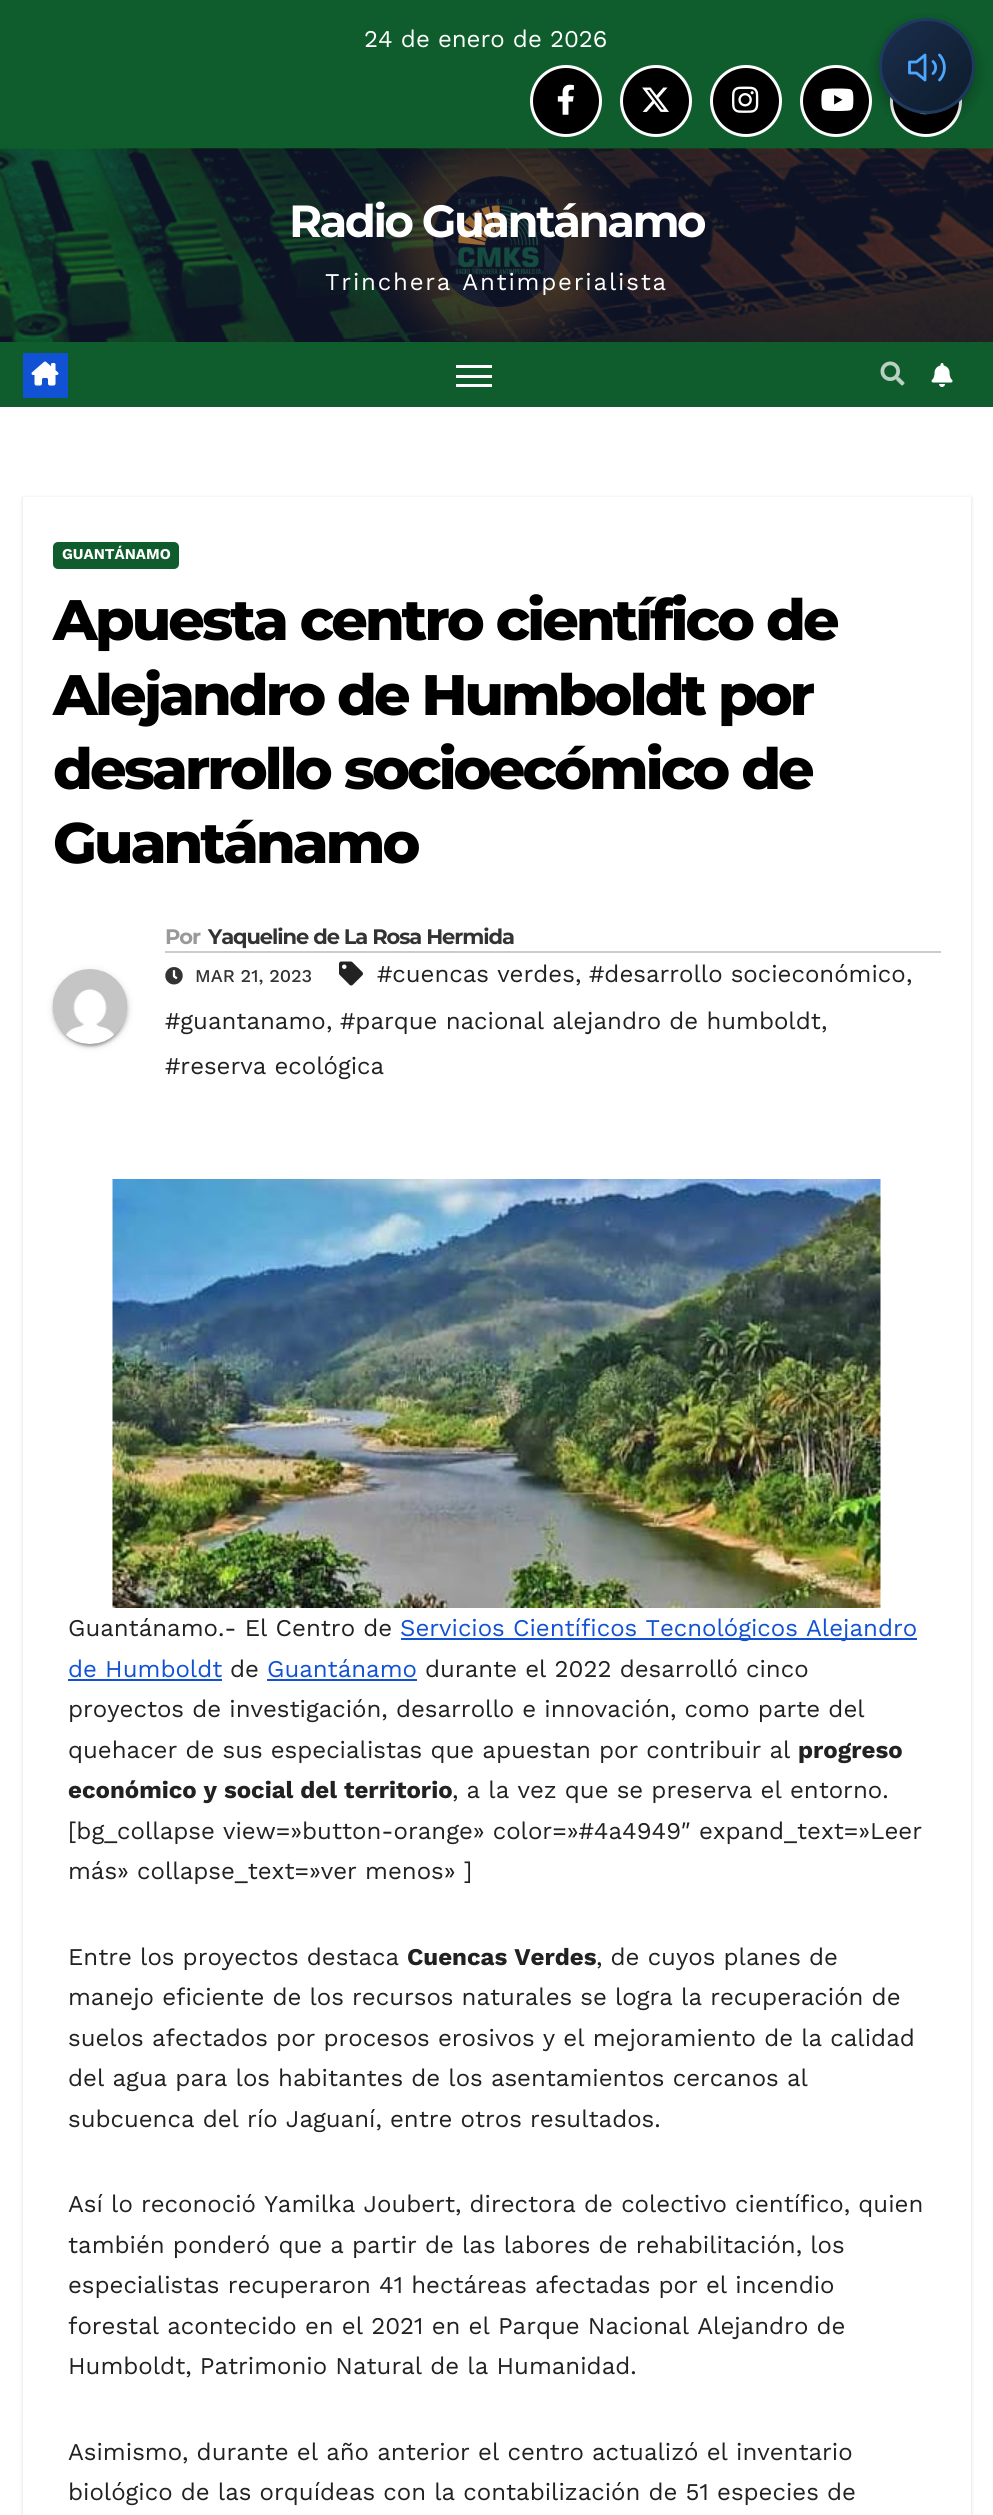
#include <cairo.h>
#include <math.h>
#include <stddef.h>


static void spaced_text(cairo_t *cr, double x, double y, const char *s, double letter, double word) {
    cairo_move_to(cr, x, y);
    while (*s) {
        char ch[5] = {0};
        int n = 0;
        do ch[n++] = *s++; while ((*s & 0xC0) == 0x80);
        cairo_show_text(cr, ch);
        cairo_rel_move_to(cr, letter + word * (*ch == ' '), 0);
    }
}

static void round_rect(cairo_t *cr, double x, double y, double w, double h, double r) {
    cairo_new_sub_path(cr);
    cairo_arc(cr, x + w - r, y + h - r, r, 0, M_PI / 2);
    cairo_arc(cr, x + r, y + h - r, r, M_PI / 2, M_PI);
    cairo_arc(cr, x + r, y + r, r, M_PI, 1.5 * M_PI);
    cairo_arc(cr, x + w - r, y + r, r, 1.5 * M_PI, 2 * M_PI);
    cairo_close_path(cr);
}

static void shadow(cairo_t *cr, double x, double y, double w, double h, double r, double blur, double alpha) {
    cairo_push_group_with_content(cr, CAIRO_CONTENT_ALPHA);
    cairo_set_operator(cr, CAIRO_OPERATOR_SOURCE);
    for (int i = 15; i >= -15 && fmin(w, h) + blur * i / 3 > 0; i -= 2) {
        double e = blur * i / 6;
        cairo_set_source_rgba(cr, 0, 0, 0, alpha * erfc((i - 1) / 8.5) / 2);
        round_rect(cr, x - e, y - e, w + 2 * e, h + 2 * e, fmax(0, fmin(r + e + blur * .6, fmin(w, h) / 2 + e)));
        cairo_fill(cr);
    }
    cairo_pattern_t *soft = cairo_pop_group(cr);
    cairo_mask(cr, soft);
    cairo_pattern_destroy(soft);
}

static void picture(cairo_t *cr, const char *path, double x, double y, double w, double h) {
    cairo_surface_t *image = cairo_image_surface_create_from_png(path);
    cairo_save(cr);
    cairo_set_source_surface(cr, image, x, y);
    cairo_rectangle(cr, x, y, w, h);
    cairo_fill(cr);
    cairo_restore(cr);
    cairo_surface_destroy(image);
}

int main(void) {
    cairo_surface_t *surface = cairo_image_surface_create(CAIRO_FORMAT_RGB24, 993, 2515);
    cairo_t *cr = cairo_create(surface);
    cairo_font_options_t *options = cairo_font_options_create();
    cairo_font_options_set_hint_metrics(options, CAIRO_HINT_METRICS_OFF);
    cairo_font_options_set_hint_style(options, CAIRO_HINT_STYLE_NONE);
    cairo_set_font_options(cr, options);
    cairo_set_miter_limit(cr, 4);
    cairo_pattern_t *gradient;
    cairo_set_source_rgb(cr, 1, 1, 1);
    cairo_paint(cr);
    cairo_set_source_rgb(cr, 0.059, 0.365, 0.176);
    cairo_rectangle(cr, 0, 0, 993, 149);
    cairo_fill(cr);
    cairo_select_font_face(cr, "Work Sans", CAIRO_FONT_SLANT_NORMAL, CAIRO_FONT_WEIGHT_NORMAL);
    cairo_set_font_size(cr, 24);
    cairo_set_source_rgb(cr, 1, 1, 1);
    cairo_move_to(cr, 364, 47);
    cairo_show_text(cr, "24 de enero de 2026");
    cairo_set_source_rgb(cr, 0, 0, 0);
    cairo_new_path(cr);
    cairo_arc(cr, 566, 101, 34.5, 0, 2 * M_PI);
    cairo_fill_preserve(cr);
    cairo_set_source_rgb(cr, 1, 1, 1);
    cairo_set_line_width(cr, 3);
    cairo_stroke(cr);
    picture(cr, "img1.png", 557, 84, 17, 31);
    cairo_set_source_rgb(cr, 0, 0, 0);
    cairo_arc(cr, 656, 101, 34.5, 0, 2 * M_PI);
    cairo_fill_preserve(cr);
    cairo_set_source_rgb(cr, 1, 1, 1);
    cairo_stroke(cr);
    picture(cr, "img2.png", 642, 87, 27, 25);
    cairo_set_source_rgb(cr, 0, 0, 0);
    cairo_arc(cr, 746, 101, 34.5, 0, 2 * M_PI);
    cairo_fill_preserve(cr);
    cairo_set_source_rgb(cr, 1, 1, 1);
    cairo_stroke(cr);
    picture(cr, "img3.png", 732, 86, 27, 27);
    cairo_set_source_rgb(cr, 0, 0, 0);
    cairo_arc(cr, 836, 101, 34.5, 0, 2 * M_PI);
    cairo_fill_preserve(cr);
    cairo_set_source_rgb(cr, 1, 1, 1);
    cairo_stroke(cr);
    picture(cr, "img4.png", 821, 88, 33, 23);
    cairo_set_source_rgb(cr, 0, 0, 0);
    cairo_arc(cr, 926, 101, 34.5, 0, 2 * M_PI);
    cairo_fill_preserve(cr);
    cairo_set_source_rgb(cr, 1, 1, 1);
    cairo_stroke(cr);
    picture(cr, "img5.png", 917, 112, 14, 3);
    picture(cr, "img6.png", 0, 148, 993, 194);
    cairo_select_font_face(cr, "Montserrat", CAIRO_FONT_SLANT_NORMAL, CAIRO_FONT_WEIGHT_BOLD);
    cairo_set_font_size(cr, 45);
    spaced_text(cr, 289, 237, "Radio Guantánamo", -2.5, 0);
    cairo_select_font_face(cr, "Work Sans", CAIRO_FONT_SLANT_NORMAL, CAIRO_FONT_WEIGHT_NORMAL);
    cairo_set_font_size(cr, 24);
    spaced_text(cr, 325, 290, "Trinchera Antimperialista", 1.8, 0);
    cairo_set_source_rgb(cr, 0.059, 0.365, 0.176);
    cairo_rectangle(cr, 0, 342, 993, 65);
    cairo_fill(cr);
    cairo_set_source_rgb(cr, 0.067, 0.318, 0.827);
    cairo_rectangle(cr, 23, 353, 45, 45);
    cairo_fill(cr);
    picture(cr, "img7.png", 31, 361, 28, 25);
    cairo_set_source_rgb(cr, 1, 1, 1);
    cairo_rectangle(cr, 456, 365, 36, 3);
    cairo_fill(cr);
    cairo_rectangle(cr, 456, 375, 36, 3);
    cairo_fill(cr);
    cairo_rectangle(cr, 456, 384, 36, 3);
    cairo_fill(cr);
    picture(cr, "img8.png", 880, 361, 25, 25);
    picture(cr, "img9.png", 931, 363, 22, 24);
    cairo_set_source_rgb(cr, 0, 0, 0);
    shadow(cr, 23, 498, 948, 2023, 0, 2, 0.15);
    cairo_set_source_rgb(cr, 1, 1, 1);
    cairo_rectangle(cr, 23, 497, 948, 2018);
    cairo_fill(cr);
    cairo_set_source_rgb(cr, 0.059, 0.365, 0.176);
    round_rect(cr, 53, 542, 126, 27, 5);
    cairo_fill(cr);
    cairo_select_font_face(cr, "Work Sans", CAIRO_FONT_SLANT_NORMAL, CAIRO_FONT_WEIGHT_BOLD);
    cairo_set_font_size(cr, 15);
    cairo_set_source_rgb(cr, 1, 1, 1);
    cairo_move_to(cr, 62, 559);
    cairo_show_text(cr, "GUANTÁNAMO");
    cairo_select_font_face(cr, "Montserrat ExtraBold", CAIRO_FONT_SLANT_NORMAL, CAIRO_FONT_WEIGHT_NORMAL);
    cairo_set_font_size(cr, 57);
    cairo_set_source_rgb(cr, 0, 0, 0);
    spaced_text(cr, 53, 640, "Apuesta centro científico de", -2.85, 0);
    spaced_text(cr, 53, 715, "Alejandro de Humboldt por", -2.85, 0);
    spaced_text(cr, 53, 789, "desarrollo socioecómico de", -2.85, 0);
    spaced_text(cr, 53, 863, "Guantánamo", -2.85, 0);
    cairo_set_source_rgb(cr, 0, 0, 0);
    shadow(cr, 53, 971, 75, 75, 37.5, 4, 0.12);
    shadow(cr, 56, 977, 69, 69, 34.5, 1, 0.2);
    shadow(cr, 53, 972, 75, 75, 37.5, 1.5, 0.14);
    picture(cr, "img10.png", 52, 969, 76, 75);
    cairo_set_source_rgb(cr, 0.8, 0.8, 0.8);
    cairo_rectangle(cr, 165, 951, 776, 2);
    cairo_fill(cr);
    cairo_select_font_face(cr, "Montserrat", CAIRO_FONT_SLANT_NORMAL, CAIRO_FONT_WEIGHT_BOLD);
    cairo_set_font_size(cr, 21);
    cairo_set_source_rgb(cr, 0.6, 0.6, 0.6);
    spaced_text(cr, 165, 944, "Por", -1.05, 0);
    cairo_set_source_rgb(cr, 0.2, 0.2, 0.2);
    spaced_text(cr, 208, 944, "Yaqueline de La Rosa Hermida", -1.05, 0);
    picture(cr, "img11.png", 339, 961, 24, 25);
    cairo_select_font_face(cr, "Work Sans", CAIRO_FONT_SLANT_NORMAL, CAIRO_FONT_WEIGHT_NORMAL);
    cairo_set_font_size(cr, 24);
    cairo_set_source_rgb(cr, 0.129, 0.129, 0.129);
    cairo_move_to(cr, 377, 982);
    cairo_show_text(cr, "#cuencas verdes");
    cairo_move_to(cr, 575, 982);
    cairo_show_text(cr, ",");
    cairo_move_to(cr, 589, 982);
    cairo_show_text(cr, "#desarrollo socieconómico");
    cairo_move_to(cr, 906, 982);
    cairo_show_text(cr, ",");
    cairo_move_to(cr, 165, 1029);
    cairo_show_text(cr, "#guantanamo");
    cairo_move_to(cr, 326, 1029);
    cairo_show_text(cr, ",");
    cairo_move_to(cr, 340, 1029);
    cairo_show_text(cr, "#parque nacional alejandro de humboldt");
    cairo_move_to(cr, 821, 1029);
    cairo_show_text(cr, ",");
    cairo_move_to(cr, 165, 1074);
    cairo_show_text(cr, "#reserva ecológica");
    picture(cr, "img12.png", 165, 967, 18, 18);
    cairo_select_font_face(cr, "Work Sans Medium", CAIRO_FONT_SLANT_NORMAL, CAIRO_FONT_WEIGHT_NORMAL);
    cairo_set_font_size(cr, 18);
    cairo_set_source_rgb(cr, 0.2, 0.2, 0.2);
    cairo_move_to(cr, 195, 982);
    cairo_show_text(cr, "MAR 21, 2023");
    picture(cr, "img13.png", 112, 1179, 769, 429);
    cairo_select_font_face(cr, "Work Sans", CAIRO_FONT_SLANT_NORMAL, CAIRO_FONT_WEIGHT_NORMAL);
    cairo_set_font_size(cr, 24);
    cairo_set_source_rgb(cr, 0.129, 0.129, 0.129);
    cairo_move_to(cr, 68, 1636);
    cairo_show_text(cr, "Guantánamo.- El Centro de");
    cairo_set_source_rgb(cr, 0.067, 0.318, 0.827);
    cairo_rectangle(cr, 401, 1638, 516, 2);
    cairo_fill(cr);
    cairo_move_to(cr, 400, 1636);
    cairo_show_text(cr, "Servicios Científicos Tecnológicos Alejandro");
    cairo_move_to(cr, 68, 1677);
    cairo_show_text(cr, "de Humboldt");
    cairo_rectangle(cr, 68, 1679, 154, 2);
    cairo_fill(cr);
    cairo_set_source_rgb(cr, 0.129, 0.129, 0.129);
    cairo_move_to(cr, 230, 1677);
    cairo_show_text(cr, "de");
    cairo_set_source_rgb(cr, 0.067, 0.318, 0.827);
    cairo_move_to(cr, 267, 1677);
    cairo_show_text(cr, "Guantánamo");
    cairo_rectangle(cr, 267, 1679, 150, 2);
    cairo_fill(cr);
    cairo_set_source_rgb(cr, 0.129, 0.129, 0.129);
    cairo_move_to(cr, 425, 1677);
    cairo_show_text(cr, "durante el 2022 desarrolló cinco");
    cairo_move_to(cr, 68, 1717);
    cairo_show_text(cr, "proyectos de investigación, desarrollo e innovación, como parte del");
    cairo_move_to(cr, 68, 1758);
    cairo_show_text(cr, "quehacer de sus especialistas que apuestan por contribuir al");
    cairo_select_font_face(cr, "Work Sans", CAIRO_FONT_SLANT_NORMAL, CAIRO_FONT_WEIGHT_BOLD);
    cairo_move_to(cr, 798, 1758);
    cairo_show_text(cr, "progreso");
    cairo_move_to(cr, 68, 1798);
    cairo_show_text(cr, "económico y social del territorio");
    cairo_select_font_face(cr, "Work Sans", CAIRO_FONT_SLANT_NORMAL, CAIRO_FONT_WEIGHT_NORMAL);
    cairo_move_to(cr, 452, 1798);
    cairo_show_text(cr, ", a la vez que se preserva el entorno.");
    cairo_move_to(cr, 68, 1839);
    cairo_show_text(cr, "[bg_collapse view=»button-orange» color=»#4a4949″ expand_text=»Leer");
    cairo_move_to(cr, 68, 1879);
    cairo_show_text(cr, "más» collapse_text=»ver menos» ]");
    cairo_move_to(cr, 68, 1965);
    cairo_show_text(cr, "Entre los proyectos destaca");
    cairo_select_font_face(cr, "Work Sans", CAIRO_FONT_SLANT_NORMAL, CAIRO_FONT_WEIGHT_BOLD);
    cairo_move_to(cr, 407, 1965);
    cairo_show_text(cr, "Cuencas Verdes");
    cairo_select_font_face(cr, "Work Sans", CAIRO_FONT_SLANT_NORMAL, CAIRO_FONT_WEIGHT_NORMAL);
    cairo_move_to(cr, 596, 1965);
    cairo_show_text(cr, ", de cuyos planes de");
    cairo_move_to(cr, 68, 2005);
    cairo_show_text(cr, "manejo eficiente de los recursos naturales se logra la recuperación de");
    cairo_move_to(cr, 68, 2046);
    cairo_show_text(cr, "suelos afectados por procesos erosivos y el mejoramiento de la calidad");
    cairo_move_to(cr, 68, 2086);
    cairo_show_text(cr, "del agua para los habitantes de los asentamientos cercanos al");
    cairo_move_to(cr, 68, 2127);
    cairo_show_text(cr, "subcuenca del río Jaguaní, entre otros resultados.");
    cairo_move_to(cr, 68, 2212);
    cairo_show_text(cr, "Así lo reconoció Yamilka Joubert, directora de colectivo científico, quien");
    cairo_move_to(cr, 68, 2253);
    cairo_show_text(cr, "también ponderó que a partir de las labores de rehabilitación, los");
    cairo_move_to(cr, 68, 2293);
    cairo_show_text(cr, "especialistas recuperaron 41 hectáreas afectadas por el incendio");
    cairo_move_to(cr, 68, 2334);
    cairo_show_text(cr, "forestal acontecido en el 2021 en el Parque Nacional Alejandro de");
    cairo_move_to(cr, 68, 2374);
    cairo_show_text(cr, "Humboldt, Patrimonio Natural de la Humanidad.");
    cairo_move_to(cr, 68, 2460);
    cairo_show_text(cr, "Asimismo, durante el año anterior el centro actualizó el inventario");
    cairo_move_to(cr, 68, 2500);
    cairo_show_text(cr, "biológico de las orquídeas con la contabilización de 51 especies de");
    cairo_set_source_rgb(cr, 0, 0, 0);
    shadow(cr, 879, 24, 96, 96, 48, 7.5, 0.3);
    cairo_save(cr);
    round_rect(cr, 879, 18, 96, 96, 48);
    cairo_clip(cr);
    gradient = cairo_pattern_create_linear(882, 21, 972, 111);
    cairo_pattern_add_color_stop_rgba(gradient, 0, 0.102, 0.18, 0.302, 1);
    cairo_pattern_add_color_stop_rgba(gradient, 1, 0.051, 0.106, 0.165, 1);
    cairo_set_source(cr, gradient);
    cairo_pattern_destroy(gradient);
    cairo_rectangle(cr, 882, 21, 90, 90);
    cairo_fill(cr);
    cairo_restore(cr);
    cairo_arc(cr, 927, 66, 46.5, 0, 2 * M_PI);
    cairo_set_source_rgb(cr, 0.118, 0.227, 0.373);
    cairo_stroke(cr);
    cairo_new_path(cr);
    cairo_move_to(cr, 925, 55);
    cairo_line_to(cr, 916.5, 62);
    cairo_line_to(cr, 909.5, 62);
    cairo_line_to(cr, 909.5, 73);
    cairo_line_to(cr, 916.5, 73);
    cairo_line_to(cr, 925, 80);
    cairo_close_path(cr);
    cairo_move_to(cr, 933, 61.5);
    cairo_curve_to(cr, 936.5, 64.5, 936.5, 70.5, 933, 73.5);
    cairo_move_to(cr, 939.5, 55);
    cairo_curve_to(cr, 946, 62, 946, 73, 939.5, 80);
    cairo_set_source_rgb(cr, 0.302, 0.651, 1);
    cairo_set_line_width(cr, 2.8);
    cairo_set_line_cap(cr, CAIRO_LINE_CAP_ROUND);
    cairo_set_line_join(cr, CAIRO_LINE_JOIN_ROUND);
    cairo_stroke(cr);
    cairo_surface_write_to_png(surface, "page.png");
    cairo_font_options_destroy(options);
    cairo_destroy(cr);
    cairo_surface_destroy(surface);
    return 0;
}
